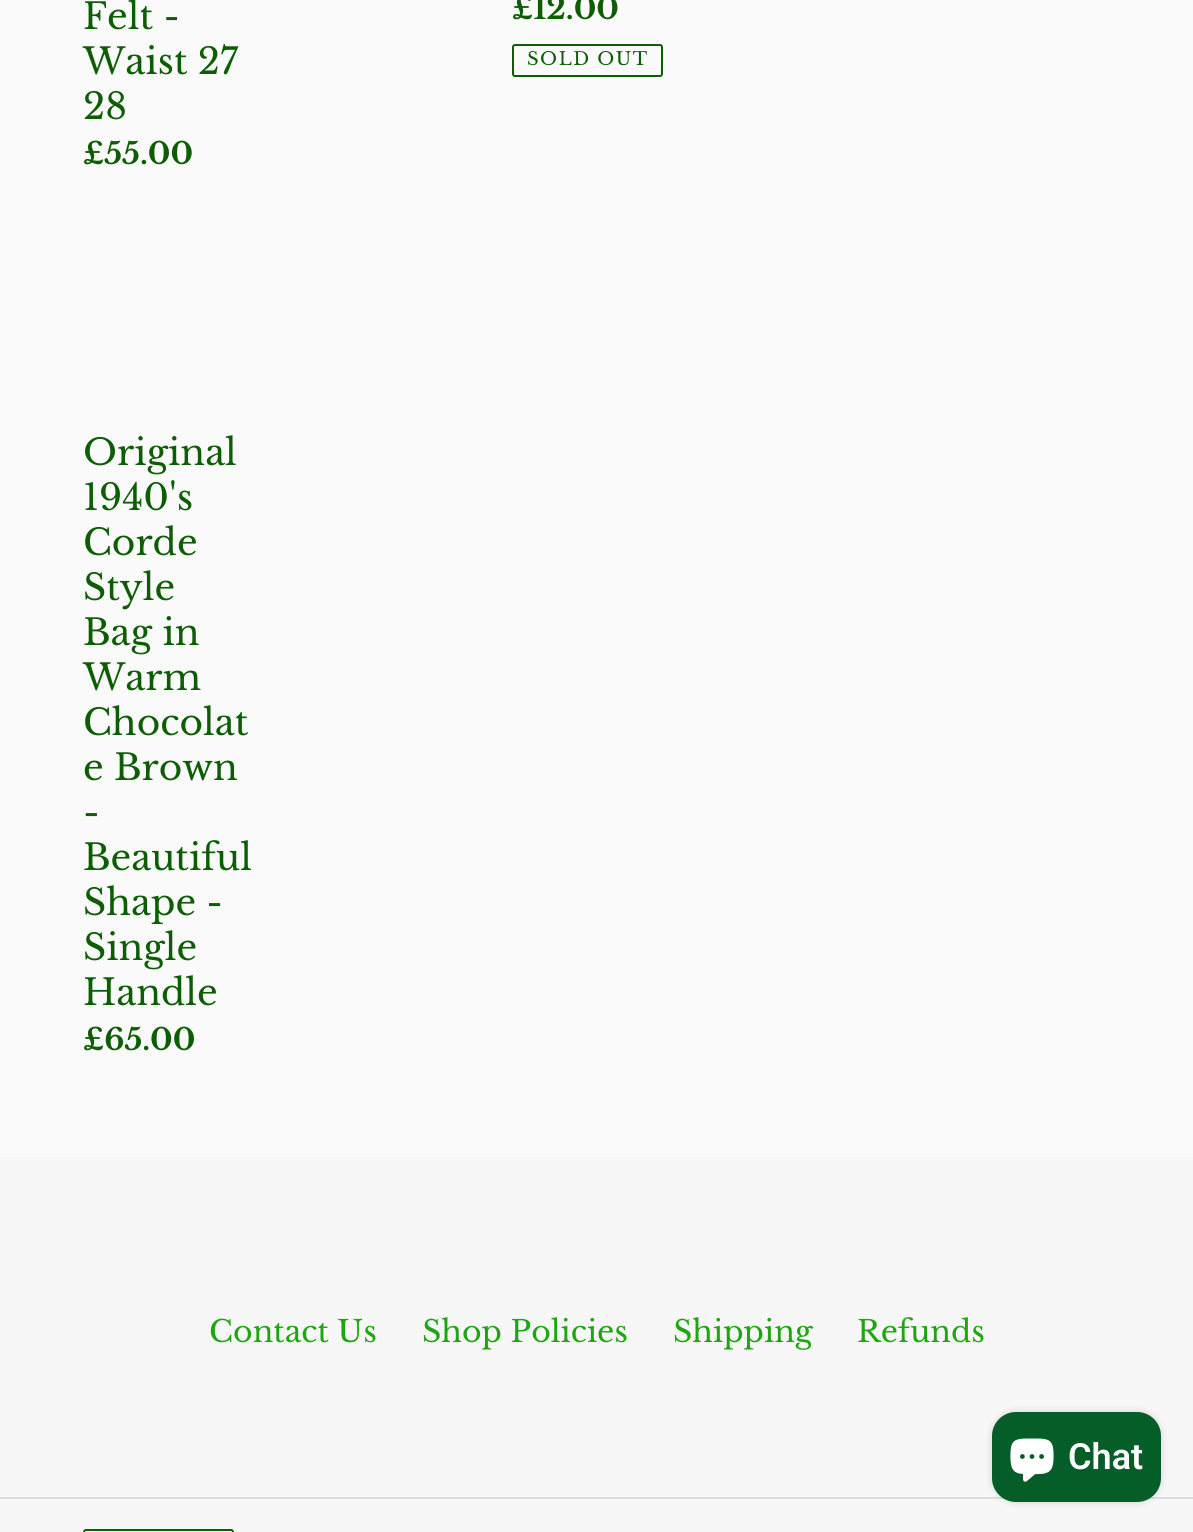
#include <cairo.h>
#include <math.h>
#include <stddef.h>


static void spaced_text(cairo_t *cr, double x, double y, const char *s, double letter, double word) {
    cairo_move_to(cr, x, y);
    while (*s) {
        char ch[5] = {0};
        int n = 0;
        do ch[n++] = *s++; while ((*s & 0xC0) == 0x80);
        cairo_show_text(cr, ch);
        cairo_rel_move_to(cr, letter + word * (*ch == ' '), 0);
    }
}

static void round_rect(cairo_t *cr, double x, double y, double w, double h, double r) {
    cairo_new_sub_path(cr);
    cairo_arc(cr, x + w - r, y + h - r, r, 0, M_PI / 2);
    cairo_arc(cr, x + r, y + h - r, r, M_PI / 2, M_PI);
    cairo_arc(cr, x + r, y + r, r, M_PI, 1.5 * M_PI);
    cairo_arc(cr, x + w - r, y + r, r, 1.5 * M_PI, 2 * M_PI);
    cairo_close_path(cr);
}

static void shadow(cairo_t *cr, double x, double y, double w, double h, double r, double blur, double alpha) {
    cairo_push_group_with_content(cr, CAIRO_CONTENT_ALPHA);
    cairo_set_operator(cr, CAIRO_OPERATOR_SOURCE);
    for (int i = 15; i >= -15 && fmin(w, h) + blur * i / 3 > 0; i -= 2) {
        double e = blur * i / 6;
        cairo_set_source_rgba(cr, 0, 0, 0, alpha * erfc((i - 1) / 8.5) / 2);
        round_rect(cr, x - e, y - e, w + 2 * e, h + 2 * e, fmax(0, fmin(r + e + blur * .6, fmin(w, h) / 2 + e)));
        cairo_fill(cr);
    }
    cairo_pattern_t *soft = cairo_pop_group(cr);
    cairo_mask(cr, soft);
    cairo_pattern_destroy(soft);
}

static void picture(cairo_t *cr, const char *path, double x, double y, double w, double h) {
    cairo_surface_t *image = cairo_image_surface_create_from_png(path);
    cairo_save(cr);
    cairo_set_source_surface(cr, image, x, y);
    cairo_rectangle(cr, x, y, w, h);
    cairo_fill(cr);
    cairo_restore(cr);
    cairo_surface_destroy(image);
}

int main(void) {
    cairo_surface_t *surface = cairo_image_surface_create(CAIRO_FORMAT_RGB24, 1193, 1532);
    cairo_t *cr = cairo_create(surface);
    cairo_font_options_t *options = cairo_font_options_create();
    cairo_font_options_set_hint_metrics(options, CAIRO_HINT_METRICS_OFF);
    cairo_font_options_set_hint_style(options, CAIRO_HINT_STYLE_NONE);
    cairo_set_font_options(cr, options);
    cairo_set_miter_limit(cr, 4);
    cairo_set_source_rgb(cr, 0.98, 0.98, 0.98);
    cairo_paint(cr);
    cairo_select_font_face(cr, "Libre Baskerville", CAIRO_FONT_SLANT_NORMAL, CAIRO_FONT_WEIGHT_NORMAL);
    cairo_set_font_size(cr, 36);
    cairo_set_source_rgb(cr, 0.047, 0.365, 0.012);
    cairo_move_to(cr, 83, 29);
    cairo_show_text(cr, "Felt -");
    cairo_move_to(cr, 83, 74);
    cairo_show_text(cr, "Waist 27");
    cairo_move_to(cr, 83, 119);
    cairo_show_text(cr, "28");
    cairo_select_font_face(cr, "Libre Baskerville", CAIRO_FONT_SLANT_NORMAL, CAIRO_FONT_WEIGHT_BOLD);
    cairo_set_font_size(cr, 30);
    cairo_move_to(cr, 83, 164);
    cairo_show_text(cr, "£55.00");
    cairo_move_to(cr, 512, 19);
    cairo_show_text(cr, "£12.00");
    round_rect(cr, 513, 45, 149, 31, 2);
    cairo_stroke(cr);
    cairo_select_font_face(cr, "Libre Baskerville", CAIRO_FONT_SLANT_NORMAL, CAIRO_FONT_WEIGHT_NORMAL);
    cairo_set_font_size(cr, 18);
    spaced_text(cr, 527, 65, "SOLD OUT", 1.5, 0);
    cairo_set_font_size(cr, 36);
    cairo_move_to(cr, 83, 465);
    cairo_show_text(cr, "Original");
    cairo_move_to(cr, 83, 510);
    cairo_show_text(cr, "1940's");
    cairo_move_to(cr, 83, 555);
    cairo_show_text(cr, "Corde");
    cairo_move_to(cr, 83, 600);
    cairo_show_text(cr, "Style");
    cairo_move_to(cr, 83, 645);
    cairo_show_text(cr, "Bag in");
    cairo_move_to(cr, 83, 690);
    cairo_show_text(cr, "Warm");
    cairo_move_to(cr, 83, 735);
    cairo_show_text(cr, "Chocolat");
    cairo_move_to(cr, 83, 780);
    cairo_show_text(cr, "e Brown");
    cairo_move_to(cr, 83, 825);
    cairo_show_text(cr, "-");
    cairo_move_to(cr, 83, 870);
    cairo_show_text(cr, "Beautiful");
    cairo_move_to(cr, 83, 915);
    cairo_show_text(cr, "Shape -");
    cairo_move_to(cr, 83, 960);
    cairo_show_text(cr, "Single");
    cairo_move_to(cr, 83, 1005);
    cairo_show_text(cr, "Handle");
    cairo_select_font_face(cr, "Libre Baskerville", CAIRO_FONT_SLANT_NORMAL, CAIRO_FONT_WEIGHT_BOLD);
    cairo_set_font_size(cr, 30);
    cairo_move_to(cr, 83, 1050);
    cairo_show_text(cr, "£65.00");
    cairo_set_source_rgb(cr, 0.965, 0.965, 0.965);
    cairo_rectangle(cr, 0, 1157, 1193, 375);
    cairo_fill(cr);
    cairo_select_font_face(cr, "Libre Baskerville", CAIRO_FONT_SLANT_NORMAL, CAIRO_FONT_WEIGHT_NORMAL);
    cairo_set_source_rgb(cr, 0.118, 0.651, 0.063);
    cairo_move_to(cr, 209, 1342);
    cairo_show_text(cr, "Contact Us");
    cairo_move_to(cr, 422, 1342);
    cairo_show_text(cr, "Shop Policies");
    cairo_move_to(cr, 673, 1342);
    cairo_show_text(cr, "Shipping");
    cairo_move_to(cr, 857, 1342);
    cairo_show_text(cr, "Refunds");
    cairo_set_source_rgb(cr, 0.867, 0.867, 0.867);
    cairo_rectangle(cr, 0, 1497, 1193, 2);
    cairo_fill(cr);
    cairo_set_source_rgb(cr, 0.98, 0.98, 0.98);
    round_rect(cr, 84, 1530, 149, 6, 2);
    cairo_fill_preserve(cr);
    cairo_set_source_rgb(cr, 0.047, 0.365, 0.012);
    cairo_stroke(cr);
    cairo_set_source_rgb(cr, 0, 0, 0);
    shadow(cr, 992, 1412, 169, 90, 24, 4, 0.15);
    cairo_set_source_rgb(cr, 0.02, 0.369, 0.153);
    round_rect(cr, 992, 1412, 169, 90, 24);
    cairo_fill(cr);
    picture(cr, "img1.png", 1010, 1438, 44, 44);
    cairo_select_font_face(cr, "Roboto SemiBold", CAIRO_FONT_SLANT_NORMAL, CAIRO_FONT_WEIGHT_NORMAL);
    cairo_set_font_size(cr, 36);
    cairo_set_source_rgb(cr, 1, 1, 1);
    cairo_move_to(cr, 1068, 1469);
    cairo_show_text(cr, "Chat");
    cairo_surface_write_to_png(surface, "page.png");
    cairo_font_options_destroy(options);
    cairo_destroy(cr);
    cairo_surface_destroy(surface);
    return 0;
}
